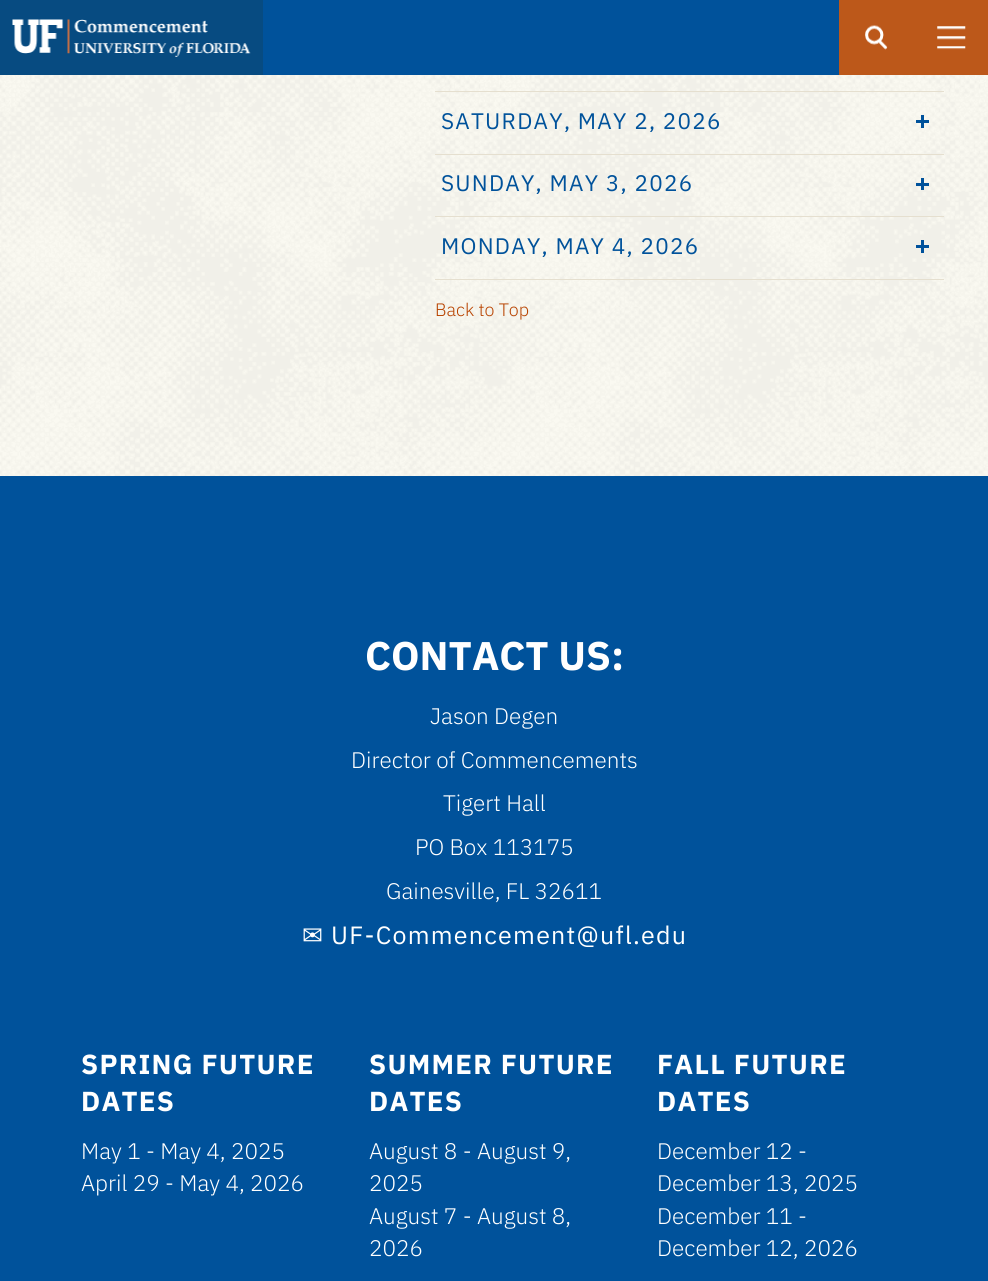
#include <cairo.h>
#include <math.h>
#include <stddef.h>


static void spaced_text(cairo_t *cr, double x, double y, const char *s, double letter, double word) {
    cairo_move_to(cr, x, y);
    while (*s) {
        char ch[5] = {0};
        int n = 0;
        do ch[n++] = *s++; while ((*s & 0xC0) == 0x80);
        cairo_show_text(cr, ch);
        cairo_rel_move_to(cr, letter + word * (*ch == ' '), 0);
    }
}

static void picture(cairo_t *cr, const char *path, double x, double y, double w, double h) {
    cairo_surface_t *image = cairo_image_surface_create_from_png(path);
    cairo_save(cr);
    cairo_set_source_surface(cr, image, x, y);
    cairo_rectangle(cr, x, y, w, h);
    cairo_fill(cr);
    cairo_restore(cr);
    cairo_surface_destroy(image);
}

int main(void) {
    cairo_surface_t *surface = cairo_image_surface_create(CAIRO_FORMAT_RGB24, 988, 1281);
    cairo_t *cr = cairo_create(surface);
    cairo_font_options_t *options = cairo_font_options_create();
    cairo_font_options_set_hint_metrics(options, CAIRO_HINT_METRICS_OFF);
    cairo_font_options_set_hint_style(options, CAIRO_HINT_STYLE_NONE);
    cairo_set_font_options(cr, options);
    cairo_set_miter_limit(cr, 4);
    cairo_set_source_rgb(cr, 0.98, 0.973, 0.945);
    cairo_paint(cr);
    picture(cr, "img1.png", 0, 75, 988, 401);
    cairo_set_source_rgb(cr, 0, 0.322, 0.608);
    cairo_rectangle(cr, 263, 0, 576, 75);
    cairo_fill(cr);
    cairo_set_source_rgb(cr, 0.031, 0.294, 0.506);
    cairo_rectangle(cr, 0, 0, 263, 75);
    cairo_fill(cr);
    picture(cr, "img2.png", 12, 19, 239, 38);
    cairo_set_source_rgb(cr, 0.737, 0.345, 0.102);
    cairo_rectangle(cr, 839, 0, 149, 75);
    cairo_fill(cr);
    picture(cr, "img3.png", 865, 25, 23, 25);
    picture(cr, "img4.png", 937, 26, 29, 24);
    cairo_set_source_rgb(cr, 0.898, 0.875, 0.812);
    cairo_rectangle(cr, 435, 91, 509, 1);
    cairo_fill(cr);
    cairo_select_font_face(cr, "IBM Plex Sans", CAIRO_FONT_SLANT_NORMAL, CAIRO_FONT_WEIGHT_NORMAL);
    cairo_set_font_size(cr, 22.5);
    cairo_set_source_rgb(cr, 0, 0.322, 0.608);
    spaced_text(cr, 441, 129, "SATURDAY, MAY 2, 2026", 1.25, 0);
    cairo_rectangle(cr, 916, 120, 13, 3);
    cairo_fill(cr);
    cairo_rectangle(cr, 921, 115, 3, 13);
    cairo_fill(cr);
    cairo_set_source_rgb(cr, 0.898, 0.875, 0.812);
    cairo_rectangle(cr, 435, 154, 509, 1);
    cairo_fill(cr);
    cairo_set_source_rgb(cr, 0, 0.322, 0.608);
    spaced_text(cr, 441, 191, "SUNDAY, MAY 3, 2026", 1.25, 0);
    cairo_rectangle(cr, 916, 183, 13, 3);
    cairo_fill(cr);
    cairo_rectangle(cr, 921, 178, 3, 12);
    cairo_fill(cr);
    cairo_set_source_rgb(cr, 0.898, 0.875, 0.812);
    cairo_rectangle(cr, 435, 216, 509, 1);
    cairo_fill(cr);
    cairo_set_source_rgb(cr, 0, 0.322, 0.608);
    spaced_text(cr, 441, 254, "MONDAY, MAY 4, 2026", 1.25, 0);
    cairo_rectangle(cr, 916, 245, 13, 3);
    cairo_fill(cr);
    cairo_rectangle(cr, 921, 240, 3, 13);
    cairo_fill(cr);
    cairo_set_source_rgb(cr, 0.898, 0.875, 0.812);
    cairo_rectangle(cr, 435, 279, 509, 1);
    cairo_fill(cr);
    cairo_select_font_face(cr, "IBM Plex Sans Light", CAIRO_FONT_SLANT_NORMAL, CAIRO_FONT_WEIGHT_NORMAL);
    cairo_set_font_size(cr, 18);
    cairo_set_source_rgb(cr, 0.722, 0.263, 0);
    cairo_move_to(cr, 435, 316);
    cairo_show_text(cr, "Back to Top");
    cairo_set_source_rgb(cr, 0, 0.322, 0.608);
    cairo_rectangle(cr, 0, 476, 988, 805);
    cairo_fill(cr);
    cairo_select_font_face(cr, "IBM Plex Sans", CAIRO_FONT_SLANT_NORMAL, CAIRO_FONT_WEIGHT_BOLD);
    cairo_set_font_size(cr, 40);
    cairo_set_source_rgb(cr, 1, 1, 1);
    cairo_move_to(cr, 365, 670);
    cairo_show_text(cr, "CONTACT US:");
    cairo_select_font_face(cr, "IBM Plex Sans Light", CAIRO_FONT_SLANT_NORMAL, CAIRO_FONT_WEIGHT_NORMAL);
    cairo_set_font_size(cr, 22.5);
    cairo_move_to(cr, 430, 724);
    cairo_show_text(cr, "Jason Degen");
    cairo_move_to(cr, 351, 768);
    cairo_show_text(cr, "Director of Commencements");
    cairo_move_to(cr, 443, 811);
    cairo_show_text(cr, "Tigert Hall");
    cairo_move_to(cr, 415, 855);
    cairo_show_text(cr, "PO Box 113175");
    cairo_move_to(cr, 386, 899);
    cairo_show_text(cr, "Gainesville, FL 32611");
    cairo_select_font_face(cr, "DejaVu Sans", CAIRO_FONT_SLANT_NORMAL, CAIRO_FONT_WEIGHT_NORMAL);
    cairo_set_font_size(cr, 25);
    spaced_text(cr, 302, 944, "✉", 1.25, 0);
    cairo_select_font_face(cr, "IBM Plex Sans", CAIRO_FONT_SLANT_NORMAL, CAIRO_FONT_WEIGHT_NORMAL);
    spaced_text(cr, 331, 944, "UF-Commencement@ufl.edu", 1.25, 0);
    cairo_select_font_face(cr, "IBM Plex Sans", CAIRO_FONT_SLANT_NORMAL, CAIRO_FONT_WEIGHT_BOLD);
    cairo_set_font_size(cr, 27.5);
    spaced_text(cr, 81, 1074, "SPRING FUTURE", 1.25, 0);
    spaced_text(cr, 81, 1111, "DATES", 1.25, 0);
    cairo_select_font_face(cr, "IBM Plex Sans Light", CAIRO_FONT_SLANT_NORMAL, CAIRO_FONT_WEIGHT_NORMAL);
    cairo_set_font_size(cr, 22.5);
    cairo_move_to(cr, 81, 1159);
    cairo_show_text(cr, "May 1 - May 4, 2025");
    cairo_move_to(cr, 81, 1191);
    cairo_show_text(cr, "April 29 - May 4, 2026");
    cairo_select_font_face(cr, "IBM Plex Sans", CAIRO_FONT_SLANT_NORMAL, CAIRO_FONT_WEIGHT_BOLD);
    cairo_set_font_size(cr, 27.5);
    spaced_text(cr, 369, 1074, "SUMMER FUTURE", 1.25, 0);
    spaced_text(cr, 369, 1111, "DATES", 1.25, 0);
    cairo_select_font_face(cr, "IBM Plex Sans Light", CAIRO_FONT_SLANT_NORMAL, CAIRO_FONT_WEIGHT_NORMAL);
    cairo_set_font_size(cr, 22.5);
    cairo_move_to(cr, 369, 1159);
    cairo_show_text(cr, "August 8 - August 9,");
    cairo_move_to(cr, 369, 1191);
    cairo_show_text(cr, "2025");
    cairo_move_to(cr, 369, 1224);
    cairo_show_text(cr, "August 7 - August 8,");
    cairo_move_to(cr, 369, 1256);
    cairo_show_text(cr, "2026");
    cairo_select_font_face(cr, "IBM Plex Sans", CAIRO_FONT_SLANT_NORMAL, CAIRO_FONT_WEIGHT_BOLD);
    cairo_set_font_size(cr, 27.5);
    spaced_text(cr, 657, 1074, "FALL FUTURE", 1.25, 0);
    spaced_text(cr, 657, 1111, "DATES", 1.25, 0);
    cairo_select_font_face(cr, "IBM Plex Sans Light", CAIRO_FONT_SLANT_NORMAL, CAIRO_FONT_WEIGHT_NORMAL);
    cairo_set_font_size(cr, 22.5);
    cairo_move_to(cr, 657, 1159);
    cairo_show_text(cr, "December 12 -");
    cairo_move_to(cr, 657, 1191);
    cairo_show_text(cr, "December 13, 2025");
    cairo_move_to(cr, 657, 1224);
    cairo_show_text(cr, "December 11 -");
    cairo_move_to(cr, 657, 1256);
    cairo_show_text(cr, "December 12, 2026");
    cairo_surface_write_to_png(surface, "page.png");
    cairo_font_options_destroy(options);
    cairo_destroy(cr);
    cairo_surface_destroy(surface);
    return 0;
}
